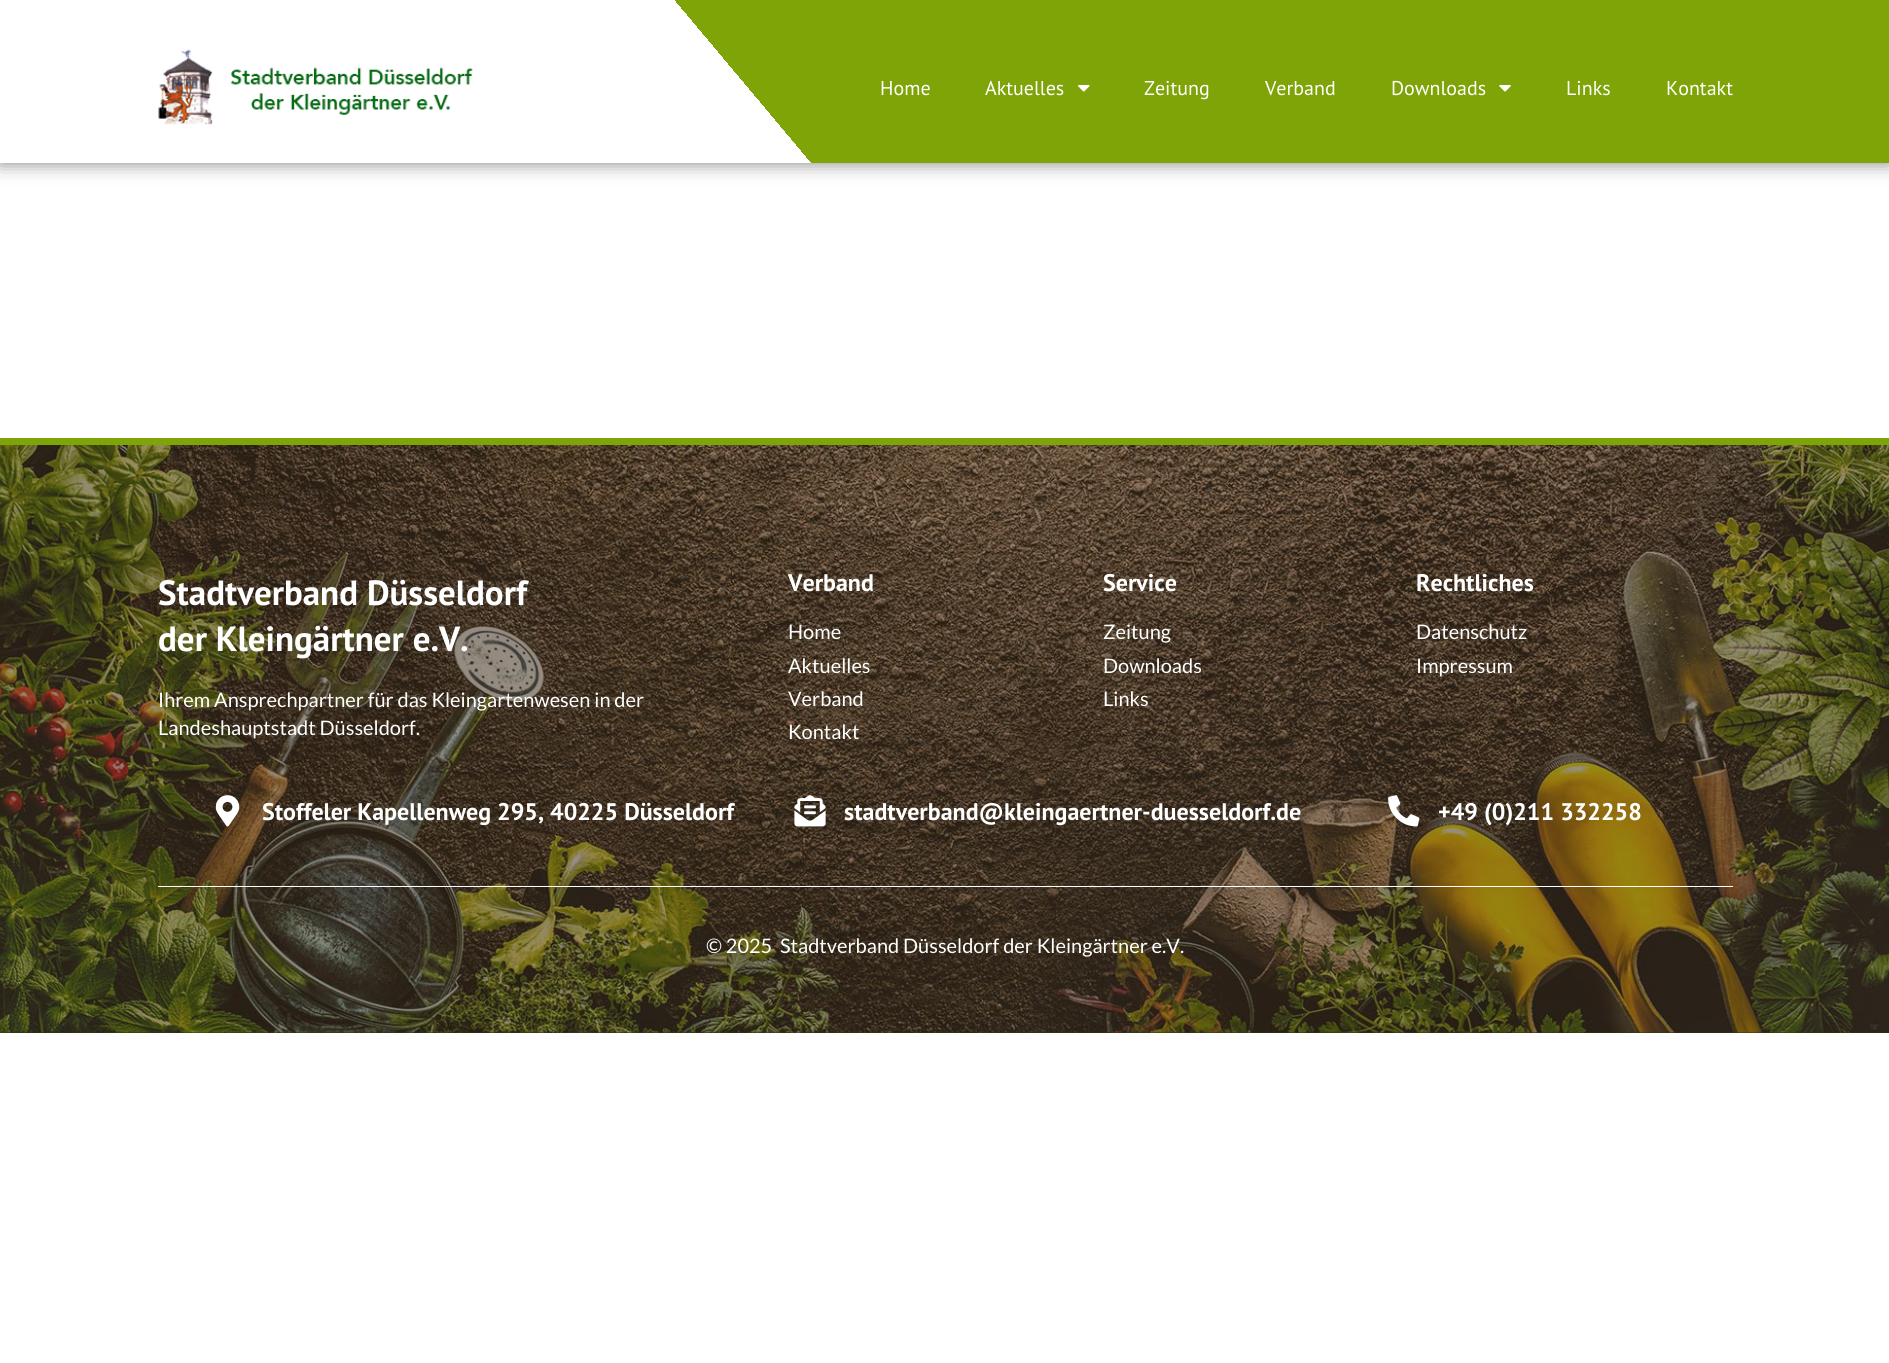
#include <cairo.h>
#include <math.h>
#include <stddef.h>


static void round_rect(cairo_t *cr, double x, double y, double w, double h, double r) {
    cairo_new_sub_path(cr);
    cairo_arc(cr, x + w - r, y + h - r, r, 0, M_PI / 2);
    cairo_arc(cr, x + r, y + h - r, r, M_PI / 2, M_PI);
    cairo_arc(cr, x + r, y + r, r, M_PI, 1.5 * M_PI);
    cairo_arc(cr, x + w - r, y + r, r, 1.5 * M_PI, 2 * M_PI);
    cairo_close_path(cr);
}

static void shadow(cairo_t *cr, double x, double y, double w, double h, double r, double blur, double alpha) {
    cairo_push_group_with_content(cr, CAIRO_CONTENT_ALPHA);
    cairo_set_operator(cr, CAIRO_OPERATOR_SOURCE);
    for (int i = 15; i >= -15 && fmin(w, h) + blur * i / 3 > 0; i -= 2) {
        double e = blur * i / 6;
        cairo_set_source_rgba(cr, 0, 0, 0, alpha * erfc((i - 1) / 8.5) / 2);
        round_rect(cr, x - e, y - e, w + 2 * e, h + 2 * e, fmax(0, fmin(r + e + blur * .6, fmin(w, h) / 2 + e)));
        cairo_fill(cr);
    }
    cairo_pattern_t *soft = cairo_pop_group(cr);
    cairo_mask(cr, soft);
    cairo_pattern_destroy(soft);
}

static void picture(cairo_t *cr, const char *path, double x, double y, double w, double h) {
    cairo_surface_t *image = cairo_image_surface_create_from_png(path);
    cairo_save(cr);
    cairo_set_source_surface(cr, image, x, y);
    cairo_rectangle(cr, x, y, w, h);
    cairo_fill(cr);
    cairo_restore(cr);
    cairo_surface_destroy(image);
}

int main(void) {
    cairo_surface_t *surface = cairo_image_surface_create(CAIRO_FORMAT_RGB24, 1889, 1363);
    cairo_t *cr = cairo_create(surface);
    cairo_font_options_t *options = cairo_font_options_create();
    cairo_font_options_set_hint_metrics(options, CAIRO_HINT_METRICS_OFF);
    cairo_font_options_set_hint_style(options, CAIRO_HINT_STYLE_NONE);
    cairo_set_font_options(cr, options);
    cairo_set_miter_limit(cr, 4);
    cairo_pattern_t *gradient;
    cairo_set_source_rgb(cr, 1, 1, 1);
    cairo_paint(cr);
    cairo_set_source_rgb(cr, 0, 0, 0);
    shadow(cr, 0, 0, 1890, 163, 0, 9.5, 0.5);
    gradient = cairo_pattern_create_linear(350, 580, 1540, -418);
    cairo_pattern_add_color_stop_rgba(gradient, 0.4, 1, 1, 1, 1);
    cairo_pattern_add_color_stop_rgba(gradient, 0.4, 0.498, 0.643, 0.031, 1);
    cairo_set_source(cr, gradient);
    cairo_pattern_destroy(gradient);
    cairo_rectangle(cr, 0, 0, 1889, 163);
    cairo_fill(cr);
    picture(cr, "img1.png", 158, 49, 315, 76);
    cairo_select_font_face(cr, "PT Sans", CAIRO_FONT_SLANT_NORMAL, CAIRO_FONT_WEIGHT_NORMAL);
    cairo_set_font_size(cr, 20);
    cairo_set_source_rgb(cr, 1, 1, 1);
    cairo_move_to(cr, 880, 95);
    cairo_show_text(cr, "Home");
    cairo_move_to(cr, 985, 95);
    cairo_show_text(cr, "Aktuelles");
    picture(cr, "img2.png", 1078, 85, 12, 7);
    cairo_move_to(cr, 1144, 95);
    cairo_show_text(cr, "Zeitung");
    cairo_move_to(cr, 1265, 95);
    cairo_show_text(cr, "Verband");
    cairo_move_to(cr, 1391, 95);
    cairo_show_text(cr, "Downloads");
    picture(cr, "img3.png", 1499, 85, 12, 7);
    cairo_move_to(cr, 1566, 95);
    cairo_show_text(cr, "Links");
    cairo_move_to(cr, 1666, 95);
    cairo_show_text(cr, "Kontakt");
    cairo_set_source_rgb(cr, 0.18, 0.216, 0.055);
    cairo_rectangle(cr, 0, 1032, 1889, 1);
    cairo_fill(cr);
    picture(cr, "img4.png", 0, 445, 1889, 588);
    cairo_set_source_rgb(cr, 0.498, 0.643, 0.031);
    cairo_rectangle(cr, 0, 438, 1889, 7);
    cairo_fill(cr);
    cairo_select_font_face(cr, "PT Sans", CAIRO_FONT_SLANT_NORMAL, CAIRO_FONT_WEIGHT_BOLD);
    cairo_set_font_size(cr, 35);
    cairo_set_source_rgb(cr, 1, 1, 1);
    cairo_move_to(cr, 158, 605);
    cairo_show_text(cr, "Stadtverband Düsseldorf");
    cairo_move_to(cr, 158, 651);
    cairo_show_text(cr, "der Kleingärtner e.V.");
    cairo_select_font_face(cr, "Lato", CAIRO_FONT_SLANT_NORMAL, CAIRO_FONT_WEIGHT_NORMAL);
    cairo_set_font_size(cr, 20);
    cairo_move_to(cr, 158, 707);
    cairo_show_text(cr, "Ihrem Ansprechpartner für das Kleingartenwesen in der");
    cairo_move_to(cr, 158, 735);
    cairo_show_text(cr, "Landeshauptstadt Düsseldorf.");
    cairo_select_font_face(cr, "PT Sans", CAIRO_FONT_SLANT_NORMAL, CAIRO_FONT_WEIGHT_BOLD);
    cairo_set_font_size(cr, 24);
    cairo_move_to(cr, 788, 591);
    cairo_show_text(cr, "Verband");
    cairo_select_font_face(cr, "Lato", CAIRO_FONT_SLANT_NORMAL, CAIRO_FONT_WEIGHT_NORMAL);
    cairo_set_font_size(cr, 20);
    cairo_move_to(cr, 788, 639);
    cairo_show_text(cr, "Home");
    cairo_move_to(cr, 788, 673);
    cairo_show_text(cr, "Aktuelles");
    cairo_move_to(cr, 788, 706);
    cairo_show_text(cr, "Verband");
    cairo_move_to(cr, 788, 739);
    cairo_show_text(cr, "Kontakt");
    cairo_select_font_face(cr, "PT Sans", CAIRO_FONT_SLANT_NORMAL, CAIRO_FONT_WEIGHT_BOLD);
    cairo_set_font_size(cr, 24);
    cairo_move_to(cr, 1103, 591);
    cairo_show_text(cr, "Service");
    cairo_select_font_face(cr, "Lato", CAIRO_FONT_SLANT_NORMAL, CAIRO_FONT_WEIGHT_NORMAL);
    cairo_set_font_size(cr, 20);
    cairo_move_to(cr, 1103, 639);
    cairo_show_text(cr, "Zeitung");
    cairo_move_to(cr, 1103, 673);
    cairo_show_text(cr, "Downloads");
    cairo_move_to(cr, 1103, 706);
    cairo_show_text(cr, "Links");
    cairo_select_font_face(cr, "PT Sans", CAIRO_FONT_SLANT_NORMAL, CAIRO_FONT_WEIGHT_BOLD);
    cairo_set_font_size(cr, 24);
    cairo_move_to(cr, 1416, 591);
    cairo_show_text(cr, "Rechtliches");
    cairo_select_font_face(cr, "Lato", CAIRO_FONT_SLANT_NORMAL, CAIRO_FONT_WEIGHT_NORMAL);
    cairo_set_font_size(cr, 20);
    cairo_move_to(cr, 1416, 639);
    cairo_show_text(cr, "Datenschutz");
    cairo_move_to(cr, 1416, 673);
    cairo_show_text(cr, "Impressum");
    picture(cr, "img5.png", 215, 795, 25, 32);
    cairo_select_font_face(cr, "PT Sans", CAIRO_FONT_SLANT_NORMAL, CAIRO_FONT_WEIGHT_BOLD);
    cairo_set_font_size(cr, 24);
    cairo_move_to(cr, 262, 820);
    cairo_show_text(cr, "Stoffeler Kapellenweg 295, 40225 Düsseldorf");
    picture(cr, "img6.png", 794, 795, 32, 32);
    cairo_move_to(cr, 844, 820);
    cairo_show_text(cr, "stadtverband@kleingaertner-duesseldorf.de");
    picture(cr, "img7.png", 1388, 795, 32, 32);
    cairo_move_to(cr, 1438, 820);
    cairo_show_text(cr, "+49 (0)211 332258");
    cairo_rectangle(cr, 158, 886, 1575, 1);
    cairo_fill(cr);
    cairo_select_font_face(cr, "Lato", CAIRO_FONT_SLANT_NORMAL, CAIRO_FONT_WEIGHT_NORMAL);
    cairo_set_font_size(cr, 20);
    cairo_move_to(cr, 706, 953);
    cairo_show_text(cr, "© 2025  Stadtverband Düsseldorf der Kleingärtner e.V.");
    cairo_surface_write_to_png(surface, "page.png");
    cairo_font_options_destroy(options);
    cairo_destroy(cr);
    cairo_surface_destroy(surface);
    return 0;
}
